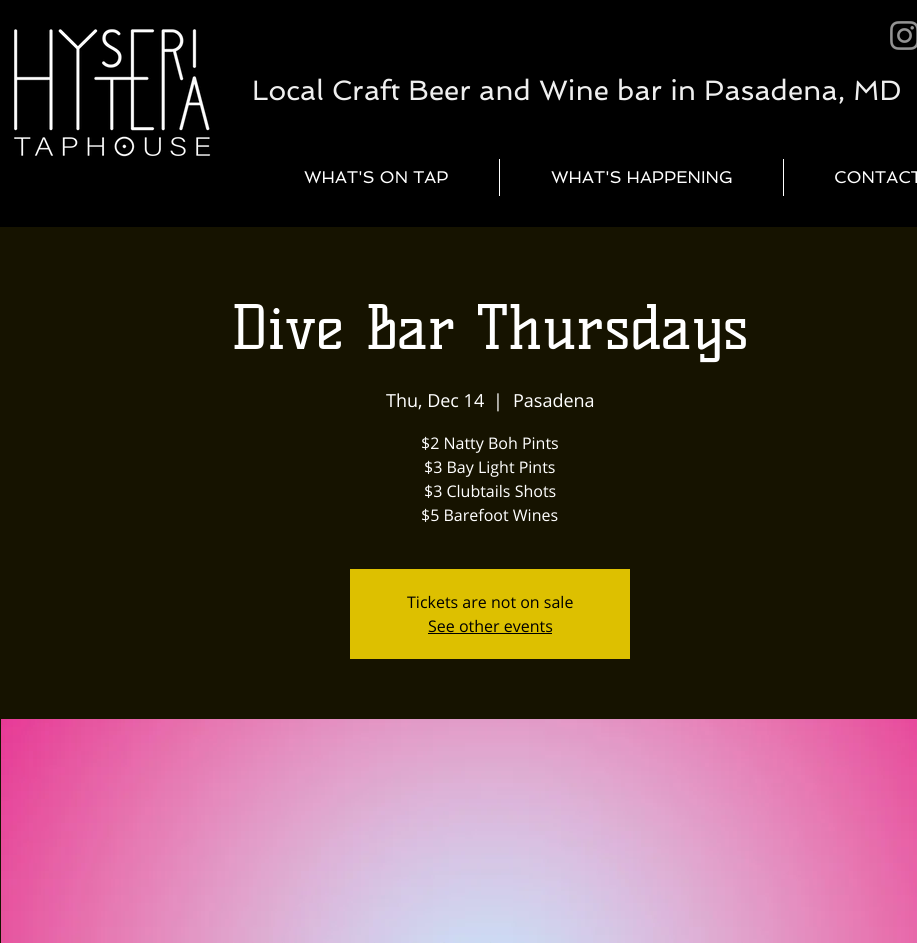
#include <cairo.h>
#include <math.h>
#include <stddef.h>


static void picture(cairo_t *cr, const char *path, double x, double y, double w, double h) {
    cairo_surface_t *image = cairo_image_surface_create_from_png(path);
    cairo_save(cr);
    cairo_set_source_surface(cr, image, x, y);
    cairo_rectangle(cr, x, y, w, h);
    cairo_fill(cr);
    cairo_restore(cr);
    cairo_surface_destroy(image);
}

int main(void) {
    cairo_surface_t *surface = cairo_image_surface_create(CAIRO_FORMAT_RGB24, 917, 943);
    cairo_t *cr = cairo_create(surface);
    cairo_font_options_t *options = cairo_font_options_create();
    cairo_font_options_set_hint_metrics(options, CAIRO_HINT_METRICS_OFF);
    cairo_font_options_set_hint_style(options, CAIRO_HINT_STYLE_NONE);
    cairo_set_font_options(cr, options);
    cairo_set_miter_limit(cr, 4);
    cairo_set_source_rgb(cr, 0, 0, 0);
    cairo_paint(cr);
    picture(cr, "img1.png", 14, 29, 197, 128);
    cairo_select_font_face(cr, "Spinnaker", CAIRO_FONT_SLANT_NORMAL, CAIRO_FONT_WEIGHT_NORMAL);
    cairo_set_font_size(cr, 28);
    cairo_set_source_rgb(cr, 0.937, 0.937, 0.937);
    cairo_move_to(cr, 252, 100);
    cairo_show_text(cr, "Local Craft Beer and Wine bar in Pasadena, MD");
    picture(cr, "img2.png", 890, 21, 27, 29);
    cairo_set_font_size(cr, 17);
    cairo_set_source_rgb(cr, 1, 1, 1);
    cairo_move_to(cr, 304, 183);
    cairo_show_text(cr, "WHAT'S ON TAP");
    cairo_rectangle(cr, 499, 159, 1, 37);
    cairo_fill(cr);
    cairo_move_to(cr, 551, 183);
    cairo_show_text(cr, "WHAT'S HAPPENING");
    cairo_rectangle(cr, 783, 159, 1, 37);
    cairo_fill(cr);
    cairo_move_to(cr, 834, 183);
    cairo_show_text(cr, "CONTACT");
    cairo_set_source_rgb(cr, 0.086, 0.075, 0);
    cairo_rectangle(cr, 0, 227, 917, 716);
    cairo_fill(cr);
    cairo_select_font_face(cr, "Kelly Slab", CAIRO_FONT_SLANT_NORMAL, CAIRO_FONT_WEIGHT_NORMAL);
    cairo_set_font_size(cr, 60);
    cairo_set_source_rgb(cr, 1, 1, 1);
    cairo_move_to(cr, 231, 349);
    cairo_show_text(cr, "Dive Bar Thursdays");
    cairo_select_font_face(cr, "Open Sans", CAIRO_FONT_SLANT_NORMAL, CAIRO_FONT_WEIGHT_NORMAL);
    cairo_set_font_size(cr, 18);
    cairo_move_to(cr, 386, 407);
    cairo_show_text(cr, "Thu, Dec 14");
    cairo_move_to(cr, 493, 407);
    cairo_show_text(cr, "|");
    cairo_move_to(cr, 513, 407);
    cairo_show_text(cr, "Pasadena");
    cairo_set_font_size(cr, 16);
    cairo_move_to(cr, 421, 449);
    cairo_show_text(cr, "$2 Natty Boh Pints");
    cairo_move_to(cr, 424, 473);
    cairo_show_text(cr, "$3 Bay Light Pints");
    cairo_move_to(cr, 424, 497);
    cairo_show_text(cr, "$3 Clubtails Shots");
    cairo_move_to(cr, 421, 521);
    cairo_show_text(cr, "$5 Barefoot Wines");
    cairo_set_source_rgb(cr, 0.867, 0.753, 0);
    cairo_rectangle(cr, 350, 569, 280, 90);
    cairo_fill(cr);
    cairo_set_source_rgb(cr, 0, 0, 0);
    cairo_move_to(cr, 407, 608);
    cairo_show_text(cr, "Tickets are not on sale");
    cairo_move_to(cr, 428, 632);
    cairo_show_text(cr, "See other events");
    cairo_rectangle(cr, 428, 633, 124, 1);
    cairo_fill(cr);
    picture(cr, "img3.png", 1, 719, 916, 224);
    cairo_surface_write_to_png(surface, "page.png");
    cairo_font_options_destroy(options);
    cairo_destroy(cr);
    cairo_surface_destroy(surface);
    return 0;
}
